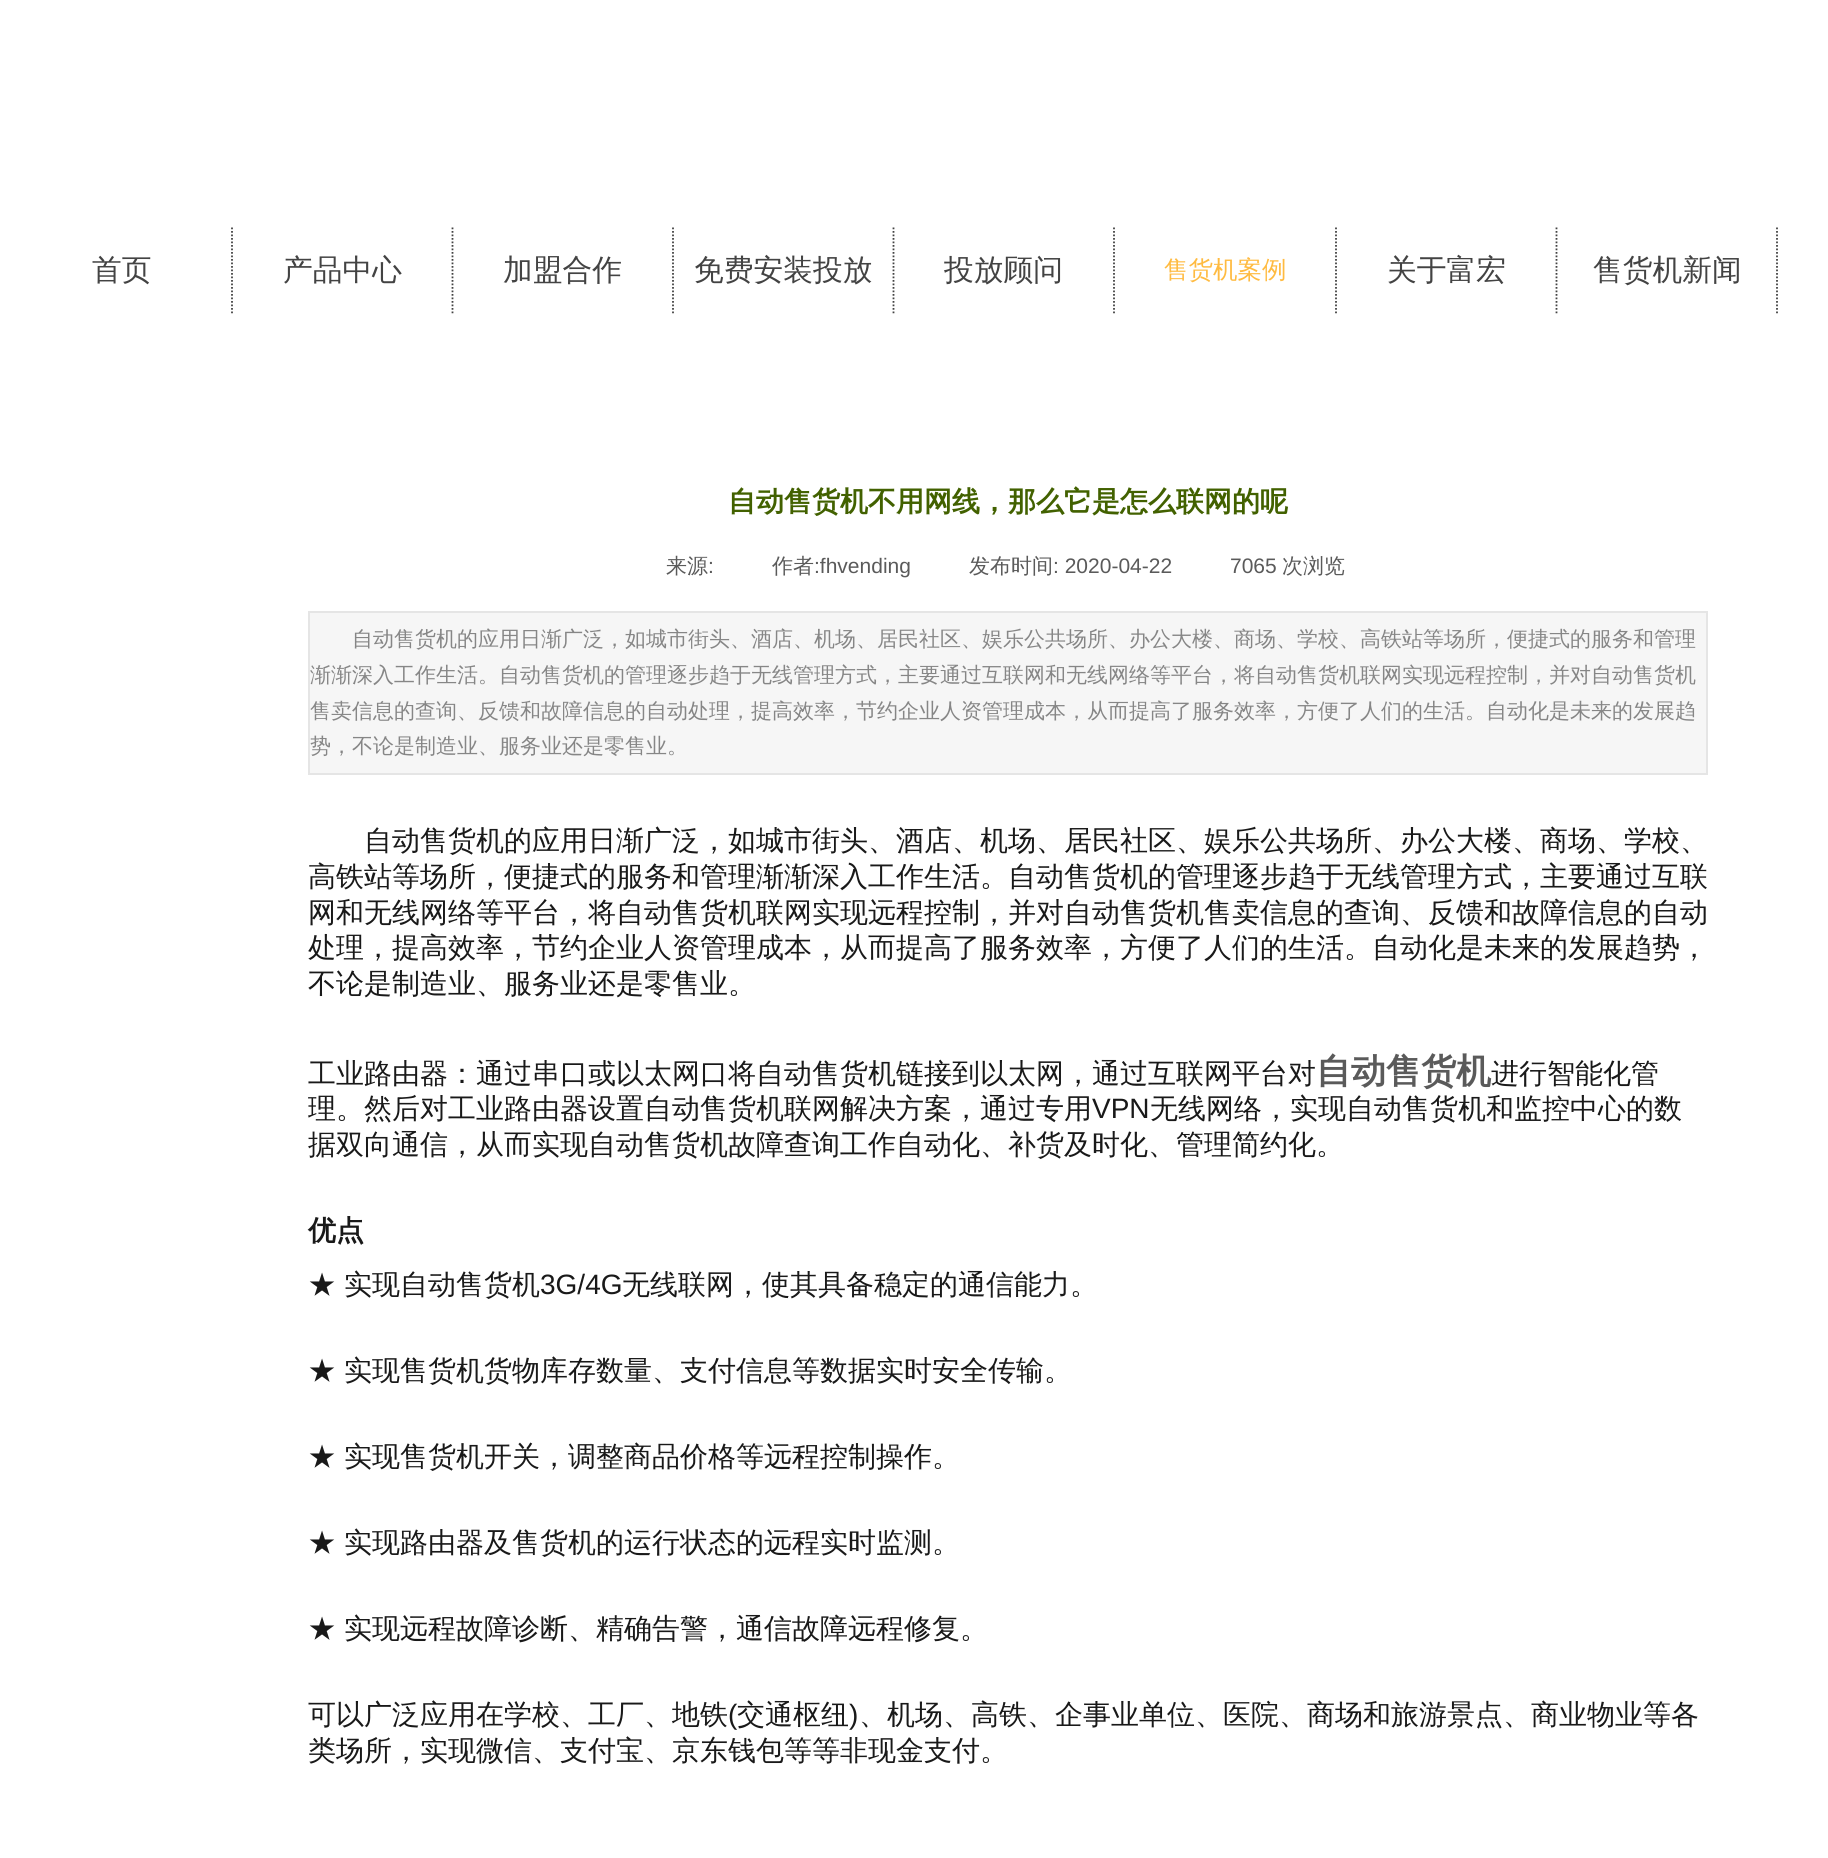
#include <cairo.h>
#include <math.h>
#include <stddef.h>


int main(void) {
    cairo_surface_t *surface = cairo_image_surface_create(CAIRO_FORMAT_RGB24, 1828, 1858);
    cairo_t *cr = cairo_create(surface);
    cairo_font_options_t *options = cairo_font_options_create();
    cairo_font_options_set_hint_metrics(options, CAIRO_HINT_METRICS_OFF);
    cairo_font_options_set_hint_style(options, CAIRO_HINT_STYLE_NONE);
    cairo_set_font_options(cr, options);
    cairo_set_miter_limit(cr, 4);
    cairo_set_source_rgb(cr, 1, 1, 1);
    cairo_paint(cr);
    cairo_new_path(cr);
    cairo_move_to(cr, 232, 227.5);
    cairo_line_to(cr, 232, 315);
    cairo_set_source_rgb(cr, 0.263, 0.263, 0.263);
    cairo_set_line_width(cr, 1.8);
    cairo_set_dash(cr, (double[]){1.75, 1.75}, 2, 0);
    cairo_stroke(cr);
    cairo_select_font_face(cr, "WenQuanYi Zen Hei Medium", CAIRO_FONT_SLANT_NORMAL, CAIRO_FONT_WEIGHT_NORMAL);
    cairo_set_font_size(cr, 29.75);
    cairo_move_to(cr, 92, 280);
    cairo_show_text(cr, "首页");
    cairo_new_path(cr);
    cairo_move_to(cr, 452.5, 227.5);
    cairo_line_to(cr, 452.5, 315);
    cairo_stroke(cr);
    cairo_move_to(cr, 283, 280);
    cairo_show_text(cr, "产品中心");
    cairo_new_path(cr);
    cairo_move_to(cr, 673, 227.5);
    cairo_line_to(cr, 673, 315);
    cairo_stroke(cr);
    cairo_move_to(cr, 503, 280);
    cairo_show_text(cr, "加盟合作");
    cairo_new_path(cr);
    cairo_move_to(cr, 893.5, 227.5);
    cairo_line_to(cr, 893.5, 315);
    cairo_stroke(cr);
    cairo_move_to(cr, 694, 280);
    cairo_show_text(cr, "免费安装投放");
    cairo_new_path(cr);
    cairo_move_to(cr, 1114, 227.5);
    cairo_line_to(cr, 1114, 315);
    cairo_stroke(cr);
    cairo_move_to(cr, 944, 280);
    cairo_show_text(cr, "投放顾问");
    cairo_new_path(cr);
    cairo_move_to(cr, 1336, 227.5);
    cairo_line_to(cr, 1336, 315);
    cairo_stroke(cr);
    cairo_set_font_size(cr, 24.5);
    cairo_set_source_rgb(cr, 1, 0.733, 0.255);
    cairo_move_to(cr, 1164, 278);
    cairo_show_text(cr, "售货机案例");
    cairo_new_path(cr);
    cairo_move_to(cr, 1556.5, 227.5);
    cairo_line_to(cr, 1556.5, 315);
    cairo_set_source_rgb(cr, 0.263, 0.263, 0.263);
    cairo_stroke(cr);
    cairo_set_font_size(cr, 29.75);
    cairo_move_to(cr, 1387, 280);
    cairo_show_text(cr, "关于富宏");
    cairo_new_path(cr);
    cairo_move_to(cr, 1777, 227.5);
    cairo_line_to(cr, 1777, 315);
    cairo_stroke(cr);
    cairo_move_to(cr, 1593, 280);
    cairo_show_text(cr, "售货机新闻");
    cairo_select_font_face(cr, "WenQuanYi Zen Hei", CAIRO_FONT_SLANT_NORMAL, CAIRO_FONT_WEIGHT_BOLD);
    cairo_set_font_size(cr, 28);
    cairo_set_source_rgb(cr, 0.259, 0.38, 0);
    cairo_move_to(cr, 728, 511);
    cairo_show_text(cr, "自动售货机不用网线，那么它是怎么联网的呢");
    cairo_select_font_face(cr, "WenQuanYi Zen Hei Medium", CAIRO_FONT_SLANT_NORMAL, CAIRO_FONT_WEIGHT_NORMAL);
    cairo_set_font_size(cr, 21);
    cairo_set_source_rgb(cr, 0.353, 0.353, 0.353);
    cairo_move_to(cr, 666, 573);
    cairo_show_text(cr, "来源");
    cairo_select_font_face(cr, "Liberation Sans", CAIRO_FONT_SLANT_NORMAL, CAIRO_FONT_WEIGHT_NORMAL);
    cairo_move_to(cr, 708, 573);
    cairo_show_text(cr, ":");
    cairo_select_font_face(cr, "WenQuanYi Zen Hei Medium", CAIRO_FONT_SLANT_NORMAL, CAIRO_FONT_WEIGHT_NORMAL);
    cairo_move_to(cr, 772, 573);
    cairo_show_text(cr, "作者");
    cairo_select_font_face(cr, "Liberation Sans", CAIRO_FONT_SLANT_NORMAL, CAIRO_FONT_WEIGHT_NORMAL);
    cairo_move_to(cr, 814, 573);
    cairo_show_text(cr, ":fhvending");
    cairo_select_font_face(cr, "WenQuanYi Zen Hei Medium", CAIRO_FONT_SLANT_NORMAL, CAIRO_FONT_WEIGHT_NORMAL);
    cairo_move_to(cr, 969, 573);
    cairo_show_text(cr, "发布时间");
    cairo_select_font_face(cr, "Liberation Sans", CAIRO_FONT_SLANT_NORMAL, CAIRO_FONT_WEIGHT_NORMAL);
    cairo_move_to(cr, 1053, 573);
    cairo_show_text(cr, ": 2020-04-22");
    cairo_move_to(cr, 1230, 573);
    cairo_show_text(cr, "7065");
    cairo_select_font_face(cr, "WenQuanYi Zen Hei Medium", CAIRO_FONT_SLANT_NORMAL, CAIRO_FONT_WEIGHT_NORMAL);
    cairo_move_to(cr, 1282, 573);
    cairo_show_text(cr, "次浏览");
    cairo_set_source_rgb(cr, 0.961, 0.961, 0.961);
    cairo_rectangle(cr, 309, 612, 1398, 162);
    cairo_fill_preserve(cr);
    cairo_set_source_rgb(cr, 0.898, 0.898, 0.898);
    cairo_set_line_width(cr, 2);
    cairo_set_dash(cr, NULL, 0, 0);
    cairo_stroke(cr);
    cairo_set_source_rgb(cr, 0.525, 0.525, 0.525);
    cairo_move_to(cr, 352, 646);
    cairo_show_text(cr, "自动售货机的应用日渐广泛，如城市街头、酒店、机场、居民社区、娱乐公共场所、办公大楼、商场、学校、高铁站等场所，便捷式的服务和管理");
    cairo_move_to(cr, 310, 682);
    cairo_show_text(cr, "渐渐深入工作生活。自动售货机的管理逐步趋于无线管理方式，主要通过互联网和无线网络等平台，将自动售货机联网实现远程控制，并对自动售货机");
    cairo_move_to(cr, 310, 718);
    cairo_show_text(cr, "售卖信息的查询、反馈和故障信息的自动处理，提高效率，节约企业人资管理成本，从而提高了服务效率，方便了人们的生活。自动化是未来的发展趋");
    cairo_move_to(cr, 310, 753);
    cairo_show_text(cr, "势，不论是制造业、服务业还是零售业。");
    cairo_set_font_size(cr, 28);
    cairo_set_source_rgb(cr, 0.098, 0.098, 0.098);
    cairo_move_to(cr, 364, 850);
    cairo_show_text(cr, "自动售货机的应用日渐广泛，如城市街头、酒店、机场、居民社区、娱乐公共场所、办公大楼、商场、学校、");
    cairo_move_to(cr, 308, 886);
    cairo_show_text(cr, "高铁站等场所，便捷式的服务和管理渐渐深入工作生活。自动售货机的管理逐步趋于无线管理方式，主要通过互联");
    cairo_move_to(cr, 308, 922);
    cairo_show_text(cr, "网和无线网络等平台，将自动售货机联网实现远程控制，并对自动售货机售卖信息的查询、反馈和故障信息的自动");
    cairo_move_to(cr, 308, 957);
    cairo_show_text(cr, "处理，提高效率，节约企业人资管理成本，从而提高了服务效率，方便了人们的生活。自动化是未来的发展趋势，");
    cairo_move_to(cr, 308, 993);
    cairo_show_text(cr, "不论是制造业、服务业还是零售业。");
    cairo_move_to(cr, 308, 1083);
    cairo_show_text(cr, "工业路由器：通过串口或以太网口将自动售货机链接到以太网，通过互联网平台对");
    cairo_select_font_face(cr, "WenQuanYi Zen Hei", CAIRO_FONT_SLANT_NORMAL, CAIRO_FONT_WEIGHT_BOLD);
    cairo_set_font_size(cr, 35);
    cairo_set_source_rgb(cr, 0.353, 0.353, 0.353);
    cairo_move_to(cr, 1316, 1083);
    cairo_show_text(cr, "自动售货机");
    cairo_select_font_face(cr, "WenQuanYi Zen Hei Medium", CAIRO_FONT_SLANT_NORMAL, CAIRO_FONT_WEIGHT_NORMAL);
    cairo_set_font_size(cr, 28);
    cairo_set_source_rgb(cr, 0.098, 0.098, 0.098);
    cairo_move_to(cr, 1491, 1083);
    cairo_show_text(cr, "进行智能化管");
    cairo_move_to(cr, 308, 1118);
    cairo_show_text(cr, "理。然后对工业路由器设置自动售货机联网解决方案，通过专用");
    cairo_select_font_face(cr, "Liberation Sans", CAIRO_FONT_SLANT_NORMAL, CAIRO_FONT_WEIGHT_NORMAL);
    cairo_move_to(cr, 1092, 1118);
    cairo_show_text(cr, "VPN");
    cairo_select_font_face(cr, "WenQuanYi Zen Hei Medium", CAIRO_FONT_SLANT_NORMAL, CAIRO_FONT_WEIGHT_NORMAL);
    cairo_move_to(cr, 1150, 1118);
    cairo_show_text(cr, "无线网络，实现自动售货机和监控中心的数");
    cairo_move_to(cr, 308, 1154);
    cairo_show_text(cr, "据双向通信，从而实现自动售货机故障查询工作自动化、补货及时化、管理简约化。");
    cairo_select_font_face(cr, "WenQuanYi Zen Hei", CAIRO_FONT_SLANT_NORMAL, CAIRO_FONT_WEIGHT_BOLD);
    cairo_move_to(cr, 308, 1240);
    cairo_show_text(cr, "优点");
    cairo_select_font_face(cr, "WenQuanYi Zen Hei Medium", CAIRO_FONT_SLANT_NORMAL, CAIRO_FONT_WEIGHT_NORMAL);
    cairo_move_to(cr, 308, 1294);
    cairo_show_text(cr, "★");
    cairo_move_to(cr, 344, 1294);
    cairo_show_text(cr, "实现自动售货机");
    cairo_select_font_face(cr, "Liberation Sans", CAIRO_FONT_SLANT_NORMAL, CAIRO_FONT_WEIGHT_NORMAL);
    cairo_move_to(cr, 540, 1294);
    cairo_show_text(cr, "3G/4G");
    cairo_select_font_face(cr, "WenQuanYi Zen Hei Medium", CAIRO_FONT_SLANT_NORMAL, CAIRO_FONT_WEIGHT_NORMAL);
    cairo_move_to(cr, 622, 1294);
    cairo_show_text(cr, "无线联网，使其具备稳定的通信能力。");
    cairo_move_to(cr, 308, 1380);
    cairo_show_text(cr, "★");
    cairo_move_to(cr, 344, 1380);
    cairo_show_text(cr, "实现售货机货物库存数量、支付信息等数据实时安全传输。");
    cairo_move_to(cr, 308, 1466);
    cairo_show_text(cr, "★");
    cairo_move_to(cr, 344, 1466);
    cairo_show_text(cr, "实现售货机开关，调整商品价格等远程控制操作。");
    cairo_move_to(cr, 308, 1552);
    cairo_show_text(cr, "★");
    cairo_move_to(cr, 344, 1552);
    cairo_show_text(cr, "实现路由器及售货机的运行状态的远程实时监测。");
    cairo_move_to(cr, 308, 1638);
    cairo_show_text(cr, "★");
    cairo_move_to(cr, 344, 1638);
    cairo_show_text(cr, "实现远程故障诊断、精确告警，通信故障远程修复。");
    cairo_move_to(cr, 308, 1724);
    cairo_show_text(cr, "可以广泛应用在学校、工厂、地铁");
    cairo_select_font_face(cr, "Liberation Sans", CAIRO_FONT_SLANT_NORMAL, CAIRO_FONT_WEIGHT_NORMAL);
    cairo_move_to(cr, 728, 1724);
    cairo_show_text(cr, "(");
    cairo_select_font_face(cr, "WenQuanYi Zen Hei Medium", CAIRO_FONT_SLANT_NORMAL, CAIRO_FONT_WEIGHT_NORMAL);
    cairo_move_to(cr, 737, 1724);
    cairo_show_text(cr, "交通枢纽");
    cairo_select_font_face(cr, "Liberation Sans", CAIRO_FONT_SLANT_NORMAL, CAIRO_FONT_WEIGHT_NORMAL);
    cairo_move_to(cr, 849, 1724);
    cairo_show_text(cr, ")");
    cairo_select_font_face(cr, "WenQuanYi Zen Hei Medium", CAIRO_FONT_SLANT_NORMAL, CAIRO_FONT_WEIGHT_NORMAL);
    cairo_move_to(cr, 859, 1724);
    cairo_show_text(cr, "、机场、高铁、企事业单位、医院、商场和旅游景点、商业物业等各");
    cairo_move_to(cr, 308, 1760);
    cairo_show_text(cr, "类场所，实现微信、支付宝、京东钱包等等非现金支付。");
    cairo_surface_write_to_png(surface, "page.png");
    cairo_font_options_destroy(options);
    cairo_destroy(cr);
    cairo_surface_destroy(surface);
    return 0;
}
